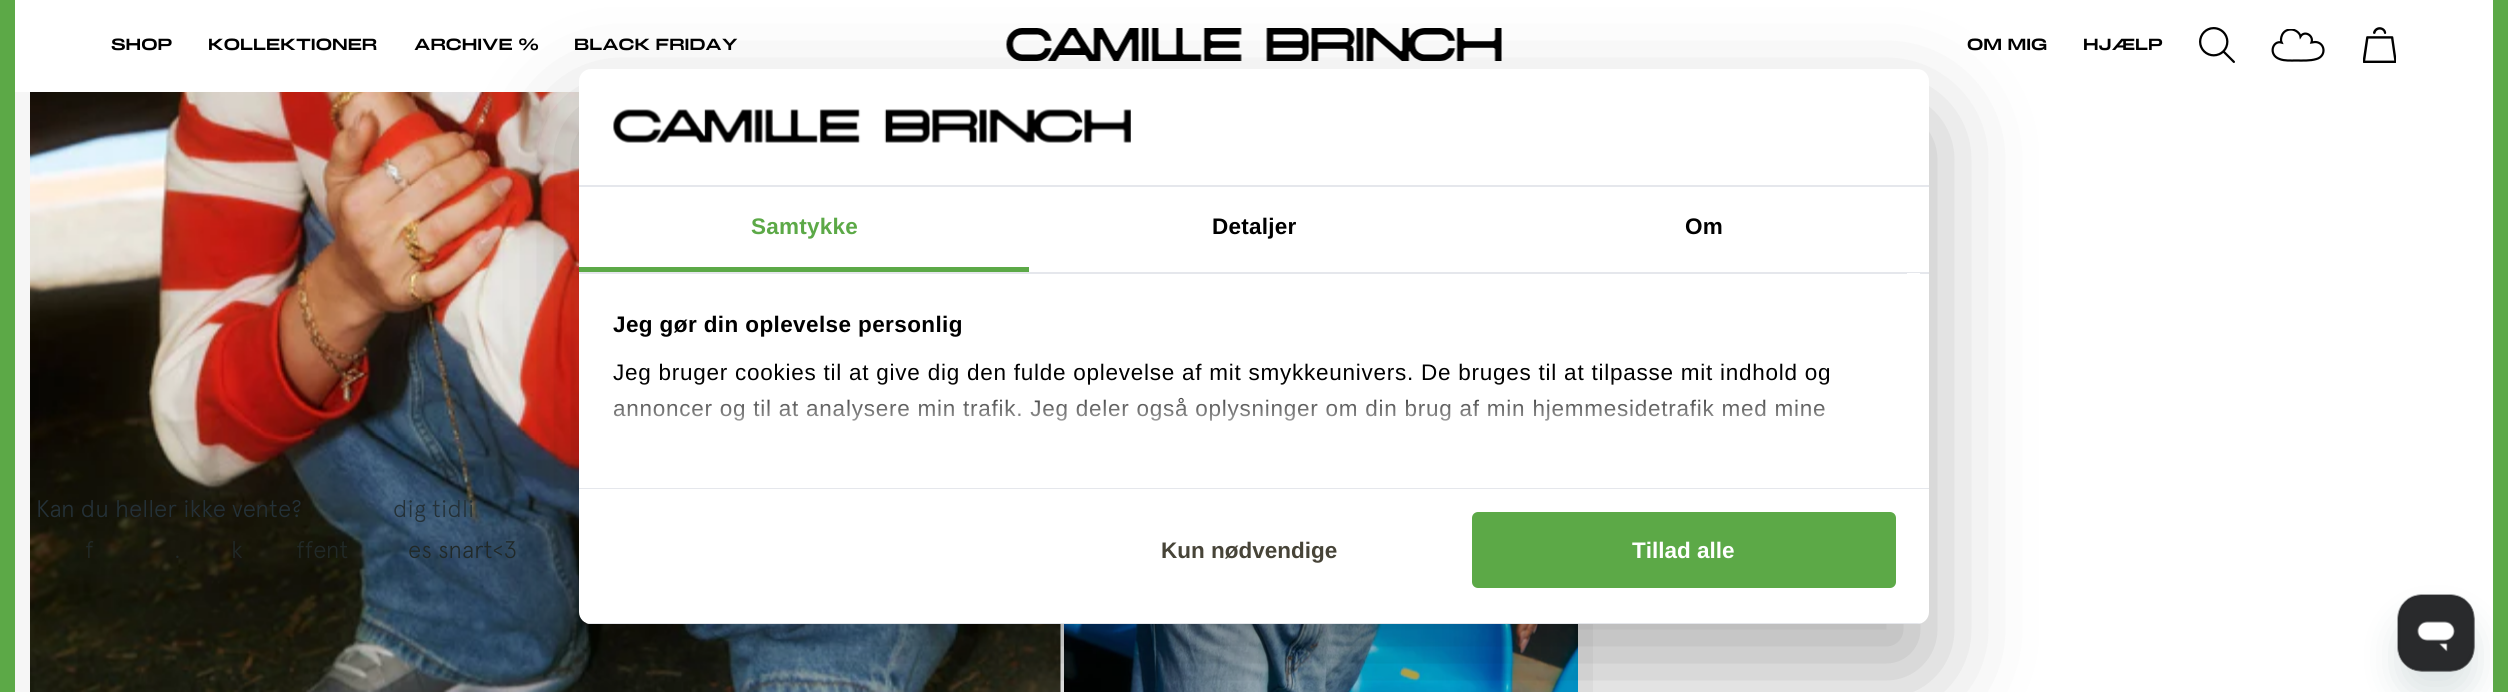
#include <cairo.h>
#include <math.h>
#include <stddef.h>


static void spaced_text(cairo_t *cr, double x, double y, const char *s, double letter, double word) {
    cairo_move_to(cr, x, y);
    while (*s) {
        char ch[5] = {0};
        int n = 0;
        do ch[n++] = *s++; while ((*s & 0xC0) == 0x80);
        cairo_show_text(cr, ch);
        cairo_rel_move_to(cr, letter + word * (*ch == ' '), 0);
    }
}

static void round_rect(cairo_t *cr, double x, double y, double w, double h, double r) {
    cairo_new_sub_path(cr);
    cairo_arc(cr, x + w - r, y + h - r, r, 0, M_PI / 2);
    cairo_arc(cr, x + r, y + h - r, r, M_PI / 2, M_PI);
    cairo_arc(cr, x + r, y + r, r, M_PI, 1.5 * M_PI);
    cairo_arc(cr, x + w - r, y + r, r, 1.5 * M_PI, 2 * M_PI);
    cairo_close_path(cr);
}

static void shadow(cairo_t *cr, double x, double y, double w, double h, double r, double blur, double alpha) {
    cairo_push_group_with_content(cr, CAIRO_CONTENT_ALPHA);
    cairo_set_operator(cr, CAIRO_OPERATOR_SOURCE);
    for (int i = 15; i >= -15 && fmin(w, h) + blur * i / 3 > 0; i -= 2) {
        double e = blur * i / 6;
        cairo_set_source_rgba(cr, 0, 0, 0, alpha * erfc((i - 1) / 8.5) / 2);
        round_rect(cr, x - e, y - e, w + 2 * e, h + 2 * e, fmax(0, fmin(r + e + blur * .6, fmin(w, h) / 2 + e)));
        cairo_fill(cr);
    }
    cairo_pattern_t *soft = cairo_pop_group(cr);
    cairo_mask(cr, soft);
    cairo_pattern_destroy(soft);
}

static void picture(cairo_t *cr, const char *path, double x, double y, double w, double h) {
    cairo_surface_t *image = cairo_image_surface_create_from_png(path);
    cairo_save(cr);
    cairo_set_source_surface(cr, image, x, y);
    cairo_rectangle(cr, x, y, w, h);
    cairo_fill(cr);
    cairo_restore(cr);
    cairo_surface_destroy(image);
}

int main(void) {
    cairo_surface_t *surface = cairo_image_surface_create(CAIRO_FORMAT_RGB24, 2508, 692);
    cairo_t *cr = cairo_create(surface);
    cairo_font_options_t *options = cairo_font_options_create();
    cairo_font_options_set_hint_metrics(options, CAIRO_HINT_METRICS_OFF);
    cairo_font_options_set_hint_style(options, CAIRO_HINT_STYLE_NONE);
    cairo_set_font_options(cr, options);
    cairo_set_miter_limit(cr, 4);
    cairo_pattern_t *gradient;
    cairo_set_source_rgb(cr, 0.361, 0.663, 0.278);
    cairo_paint(cr);
    cairo_set_source_rgb(cr, 1, 1, 1);
    cairo_rectangle(cr, 15, 0, 2478, 92);
    cairo_fill(cr);
    cairo_select_font_face(cr, "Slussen", CAIRO_FONT_SLANT_NORMAL, CAIRO_FONT_WEIGHT_BOLD);
    cairo_set_font_size(cr, 15);
    cairo_set_source_rgb(cr, 0, 0, 0);
    cairo_move_to(cr, 111, 50);
    cairo_show_text(cr, "SHOP");
    cairo_move_to(cr, 208, 50);
    cairo_show_text(cr, "KOLLEKTIONER");
    cairo_move_to(cr, 414, 50);
    cairo_show_text(cr, "ARCHIVE %");
    cairo_move_to(cr, 574, 50);
    cairo_show_text(cr, "BLACK FRIDAY");
    picture(cr, "img1.png", 1006, 28, 496, 33);
    cairo_move_to(cr, 1967, 50);
    cairo_show_text(cr, "OM MIG");
    cairo_move_to(cr, 2083, 50);
    cairo_show_text(cr, "HJÆLP");
    picture(cr, "img2.png", 2199, 27, 36, 36);
    cairo_save(cr);
    cairo_rectangle(cr, 2271, 29, 54, 33);
    cairo_clip(cr);
    cairo_new_path(cr);
    cairo_move_to(cr, 2315, 42);
    cairo_line_to(cr, 2311.5, 42.5);
    cairo_curve_to(cr, 2314, 35.5, 2304.5, 30, 2300.5, 36.5);
    cairo_curve_to(cr, 2300, 33.5, 2296, 29.5, 2291, 29.5);
    cairo_curve_to(cr, 2281.5, 29.5, 2280, 39.5, 2281.5, 42.5);
    cairo_curve_to(cr, 2272.5, 40, 2268, 55, 2279.5, 59);
    cairo_curve_to(cr, 2284.5, 61, 2291, 60.5, 2296, 60.5);
    cairo_curve_to(cr, 2302.5, 60.5, 2310, 61, 2316.5, 59);
    cairo_curve_to(cr, 2327, 56, 2325, 42, 2315, 42);
    cairo_close_path(cr);
    cairo_set_line_width(cr, 2.2);
    cairo_stroke(cr);
    cairo_restore(cr);
    picture(cr, "img3.png", 2363, 27, 33, 36);
    cairo_set_source_rgb(cr, 1, 1, 1);
    cairo_rectangle(cr, 1593, 92, 900, 600);
    cairo_fill(cr);
    cairo_set_source_rgb(cr, 0.961, 0.961, 0.961);
    cairo_rectangle(cr, 15, 92, 1578, 600);
    cairo_fill(cr);
    picture(cr, "img4.png", 30, 92, 1031, 600);
    picture(cr, "img5.png", 1064, 624, 514, 68);
    cairo_select_font_face(cr, "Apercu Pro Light", CAIRO_FONT_SLANT_NORMAL, CAIRO_FONT_WEIGHT_NORMAL);
    cairo_set_font_size(cr, 24);
    cairo_set_source_rgb(cr, 0.141, 0.192, 0.22);
    cairo_move_to(cr, 36, 517);
    cairo_show_text(cr, "Kan du heller ikke vente?");
    cairo_move_to(cr, 393, 517);
    cairo_show_text(cr, "dig tidli");
    cairo_set_source_rgb(cr, 0.129, 0.161, 0.157);
    cairo_move_to(cr, 85, 558);
    cairo_show_text(cr, "f");
    cairo_move_to(cr, 174, 558);
    cairo_show_text(cr, ".");
    cairo_move_to(cr, 231, 558);
    cairo_show_text(cr, "k");
    cairo_move_to(cr, 296, 558);
    cairo_show_text(cr, "ffent");
    cairo_move_to(cr, 408, 558);
    cairo_show_text(cr, "es snart<3");
    cairo_set_source_rgb(cr, 0, 0, 0);
    shadow(cr, 579, 117, 1350, 555, 12, 51, 0.3);
    cairo_set_source_rgb(cr, 1, 1, 1);
    round_rect(cr, 579, 69, 1350, 555, 12);
    cairo_fill(cr);
    cairo_set_source_rgb(cr, 0.898, 0.906, 0.922);
    cairo_rectangle(cr, 579, 185, 1350, 2);
    cairo_fill(cr);
    picture(cr, "img6.png", 613, 109, 518, 34);
    cairo_rectangle(cr, 579, 272, 1350, 2);
    cairo_fill(cr);
    cairo_set_source_rgb(cr, 0.361, 0.663, 0.278);
    cairo_rectangle(cr, 579, 267, 450, 5);
    cairo_fill(cr);
    cairo_select_font_face(cr, "Liberation Sans", CAIRO_FONT_SLANT_NORMAL, CAIRO_FONT_WEIGHT_BOLD);
    cairo_set_font_size(cr, 22.5);
    spaced_text(cr, 751, 234, "Samtykke", 0.25, 0);
    cairo_set_source_rgb(cr, 0, 0, 0);
    spaced_text(cr, 1212, 234, "Detaljer", 0.25, 0);
    spaced_text(cr, 1685, 234, "Om", 0.25, 0);
    cairo_set_source_rgb(cr, 0.898, 0.906, 0.922);
    cairo_rectangle(cr, 579, 488, 1350, 1);
    cairo_fill(cr);
    cairo_set_source_rgb(cr, 1, 1, 1);
    cairo_rectangle(cr, 1907, 273, 13, 1);
    cairo_fill(cr);
    cairo_set_source_rgb(cr, 0, 0, 0);
    spaced_text(cr, 613, 332, "Jeg gør din oplevelse personlig", 0.4, 0);
    cairo_select_font_face(cr, "Liberation Sans", CAIRO_FONT_SLANT_NORMAL, CAIRO_FONT_WEIGHT_NORMAL);
    spaced_text(cr, 613, 380, "Jeg bruger cookies til at give dig den fulde oplevelse af mit smykkeunivers. De bruges til at tilpasse mit indhold og", 0.75, 0);
    spaced_text(cr, 613, 416, "annoncer og til at analysere min trafik. Jeg deler også oplysninger om din brug af min hjemmesidetrafik med mine", 0.75, 0);
    gradient = cairo_pattern_create_linear(1239, 488, 1239, 380);
    cairo_pattern_add_color_stop_rgba(gradient, 0, 1, 1, 1, 1);
    cairo_pattern_add_color_stop_rgba(gradient, 0.5, 1, 1, 1, 0.8);
    cairo_pattern_add_color_stop_rgba(gradient, 1, 1, 1, 1, 0);
    cairo_set_source(cr, gradient);
    cairo_pattern_destroy(gradient);
    cairo_rectangle(cr, 613, 381, 1216, 40);
    cairo_fill(cr);
    cairo_save(cr);
    round_rect(cr, 579, 69, 1350, 555, 12);
    cairo_clip(cr);
    cairo_set_source_rgb(cr, 0.898, 0.906, 0.922);
    cairo_rectangle(cr, 579, 623, 1350, 1);
    cairo_fill(cr);
    cairo_restore(cr);
    cairo_select_font_face(cr, "Liberation Sans", CAIRO_FONT_SLANT_NORMAL, CAIRO_FONT_WEIGHT_BOLD);
    cairo_set_source_rgb(cr, 0.278, 0.267, 0.22);
    cairo_move_to(cr, 1161, 558);
    cairo_show_text(cr, "Kun nødvendige");
    cairo_set_source_rgb(cr, 0.361, 0.663, 0.278);
    round_rect(cr, 1473.5, 513.5, 421, 73, 4.5);
    cairo_fill_preserve(cr);
    cairo_set_line_width(cr, 3);
    cairo_stroke(cr);
    cairo_set_source_rgb(cr, 1, 1, 1);
    cairo_move_to(cr, 1632, 558);
    cairo_show_text(cr, "Tillad alle");
    cairo_set_source_rgb(cr, 0.09, 0.286, 0.302);
    shadow(cr, 2397, 618, 78, 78, 24, 18, 0.15);
    picture(cr, "img7.png", 2397, 594, 78, 78);
    cairo_surface_write_to_png(surface, "page.png");
    cairo_font_options_destroy(options);
    cairo_destroy(cr);
    cairo_surface_destroy(surface);
    return 0;
}
